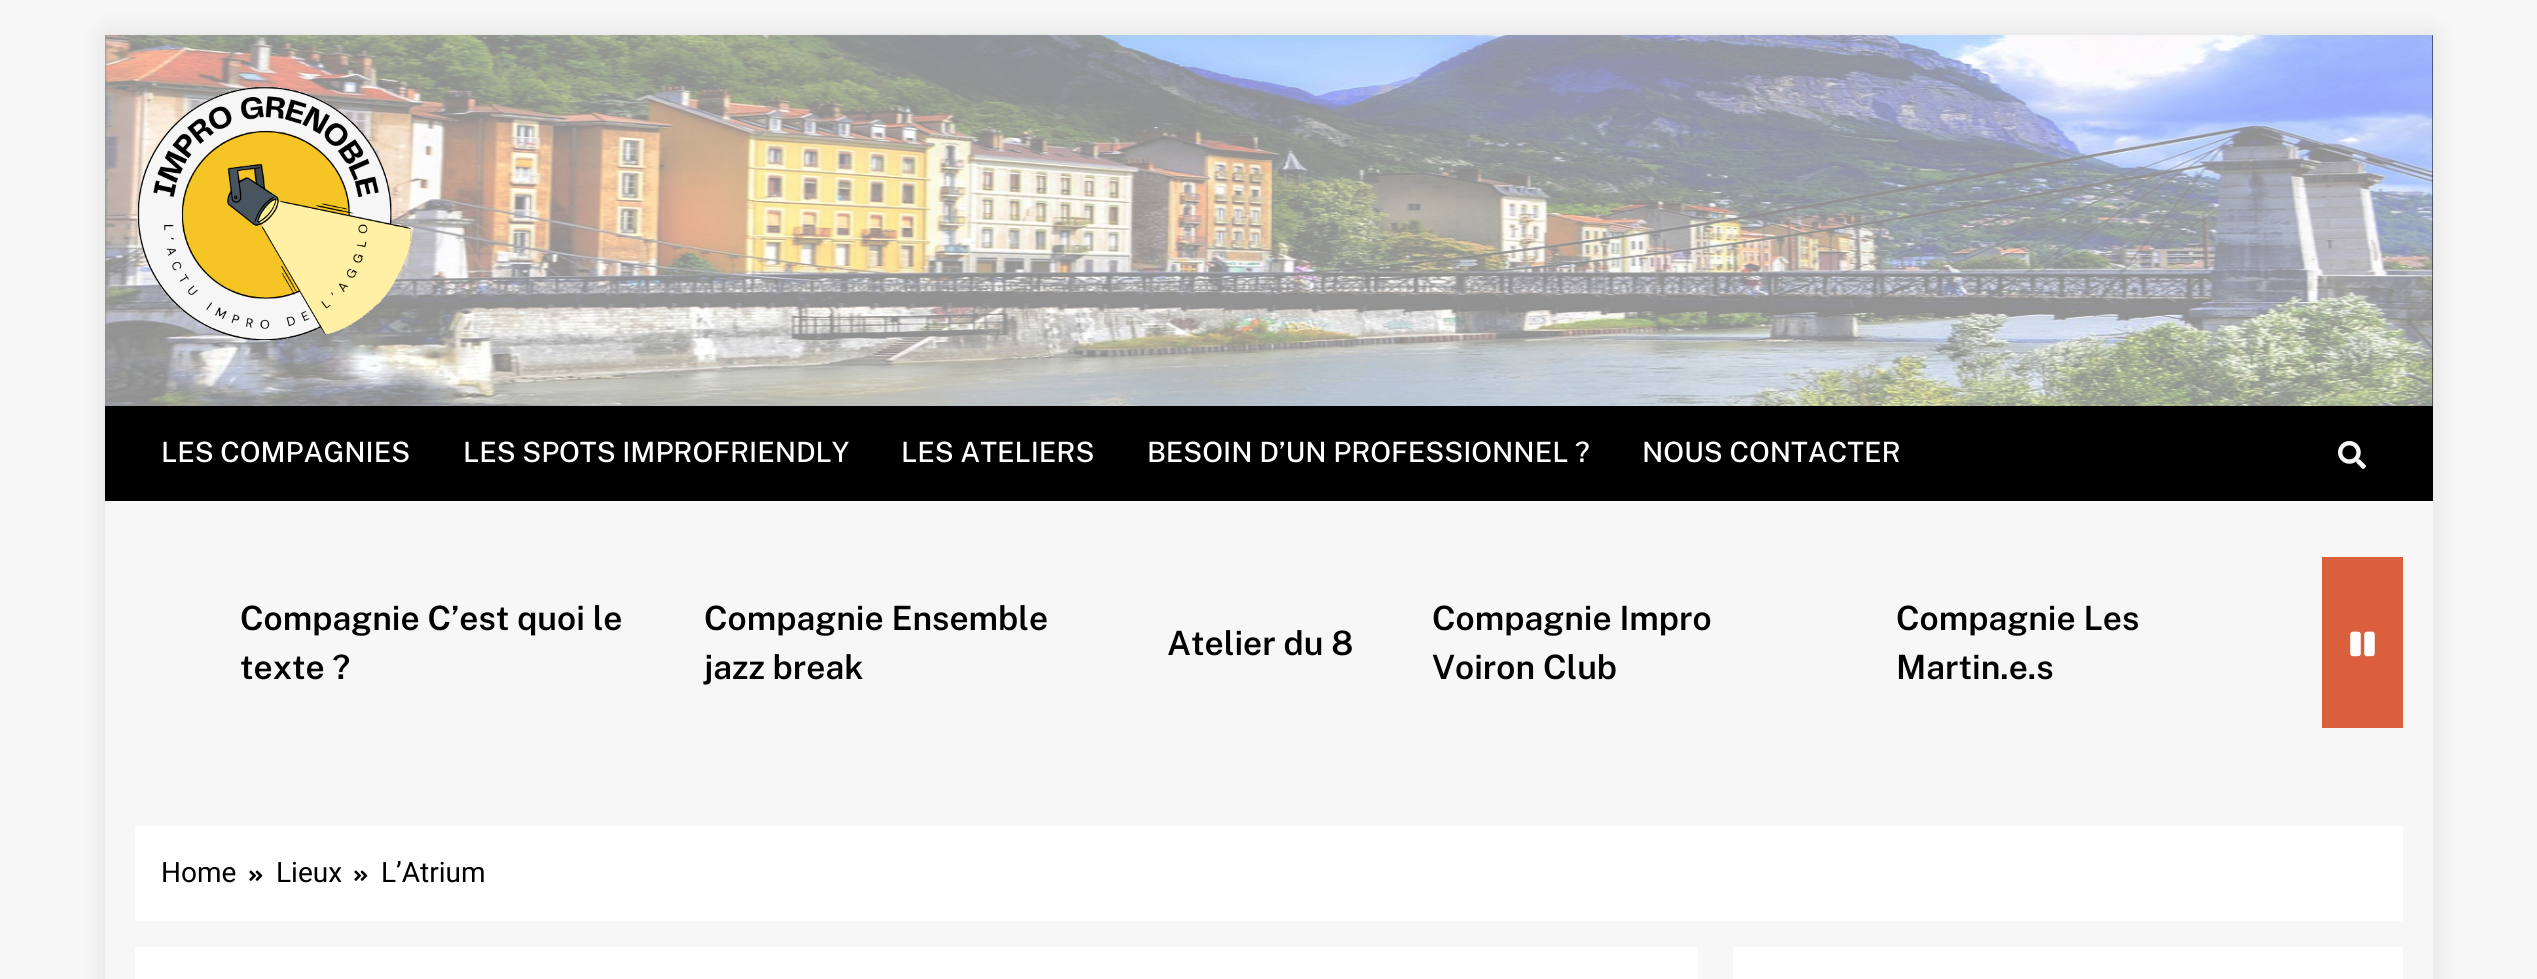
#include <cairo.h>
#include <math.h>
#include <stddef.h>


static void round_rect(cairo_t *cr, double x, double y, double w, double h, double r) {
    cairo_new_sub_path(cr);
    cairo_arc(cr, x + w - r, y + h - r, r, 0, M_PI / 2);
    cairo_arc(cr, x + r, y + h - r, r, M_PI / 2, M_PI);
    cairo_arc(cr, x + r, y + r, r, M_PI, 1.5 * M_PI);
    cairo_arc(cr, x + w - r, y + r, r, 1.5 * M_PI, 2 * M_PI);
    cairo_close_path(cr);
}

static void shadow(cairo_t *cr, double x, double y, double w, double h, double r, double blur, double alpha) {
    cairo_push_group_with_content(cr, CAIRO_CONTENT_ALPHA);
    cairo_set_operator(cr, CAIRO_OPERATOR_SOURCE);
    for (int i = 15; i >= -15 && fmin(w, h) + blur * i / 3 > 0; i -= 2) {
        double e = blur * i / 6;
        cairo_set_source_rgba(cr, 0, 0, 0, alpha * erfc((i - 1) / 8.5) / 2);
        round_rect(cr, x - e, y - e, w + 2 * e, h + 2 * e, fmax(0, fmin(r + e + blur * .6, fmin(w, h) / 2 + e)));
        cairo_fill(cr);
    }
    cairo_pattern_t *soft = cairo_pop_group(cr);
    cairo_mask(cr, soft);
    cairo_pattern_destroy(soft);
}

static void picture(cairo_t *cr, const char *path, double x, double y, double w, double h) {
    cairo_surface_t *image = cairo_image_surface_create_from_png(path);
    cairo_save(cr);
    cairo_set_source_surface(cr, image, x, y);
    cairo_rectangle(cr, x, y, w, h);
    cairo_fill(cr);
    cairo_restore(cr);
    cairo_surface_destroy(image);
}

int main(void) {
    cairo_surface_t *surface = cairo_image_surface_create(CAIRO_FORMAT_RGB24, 2537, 979);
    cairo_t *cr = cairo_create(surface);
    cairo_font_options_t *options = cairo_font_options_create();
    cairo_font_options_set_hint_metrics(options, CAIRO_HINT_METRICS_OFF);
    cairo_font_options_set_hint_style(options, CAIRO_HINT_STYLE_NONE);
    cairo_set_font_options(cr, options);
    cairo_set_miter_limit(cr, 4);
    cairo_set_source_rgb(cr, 0.965, 0.965, 0.965);
    cairo_paint(cr);
    cairo_save(cr);
    cairo_set_fill_rule(cr, CAIRO_FILL_RULE_EVEN_ODD);
    cairo_new_path(cr);
    cairo_move_to(cr, 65, 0);
    cairo_line_to(cr, 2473, 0);
    cairo_line_to(cr, 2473, 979);
    cairo_line_to(cr, 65, 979);
    cairo_close_path(cr);
    cairo_move_to(cr, 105, 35);
    cairo_line_to(cr, 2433, 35);
    cairo_line_to(cr, 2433, 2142);
    cairo_line_to(cr, 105, 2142);
    cairo_close_path(cr);
    cairo_clip(cr);
    cairo_set_source_rgb(cr, 0, 0, 0);
    shadow(cr, 105, 35, 2328, 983, 0, 13, 0.1);
    cairo_restore(cr);
    cairo_set_source_rgb(cr, 0, 0, 0);
    cairo_rectangle(cr, 2432, 35, 1, 371);
    cairo_fill(cr);
    picture(cr, "img1.png", 105, 35, 2328, 371);
    picture(cr, "img2.png", 137, 86, 274, 255);
    cairo_rectangle(cr, 105, 406, 2328, 95);
    cairo_fill(cr);
    cairo_select_font_face(cr, "Public Sans Medium", CAIRO_FONT_SLANT_NORMAL, CAIRO_FONT_WEIGHT_NORMAL);
    cairo_set_font_size(cr, 28);
    cairo_set_source_rgb(cr, 1, 1, 1);
    cairo_move_to(cr, 161, 462);
    cairo_show_text(cr, "LES COMPAGNIES");
    cairo_move_to(cr, 463, 462);
    cairo_show_text(cr, "LES SPOTS IMPROFRIENDLY");
    cairo_move_to(cr, 901, 462);
    cairo_show_text(cr, "LES ATELIERS");
    cairo_move_to(cr, 1147, 462);
    cairo_show_text(cr, "BESOIN D’UN PROFESSIONNEL ?");
    cairo_move_to(cr, 1642, 462);
    cairo_show_text(cr, "NOUS CONTACTER");
    picture(cr, "img3.png", 2338, 441, 28, 28);
    cairo_select_font_face(cr, "Public Sans SemiBold", CAIRO_FONT_SLANT_NORMAL, CAIRO_FONT_WEIGHT_NORMAL);
    cairo_set_font_size(cr, 33.5);
    cairo_set_source_rgb(cr, 0, 0, 0);
    cairo_move_to(cr, 240, 630);
    cairo_show_text(cr, "Compagnie C’est quoi le");
    cairo_move_to(cr, 240, 679);
    cairo_show_text(cr, "texte ?");
    cairo_move_to(cr, 704, 630);
    cairo_show_text(cr, "Compagnie Ensemble");
    cairo_move_to(cr, 704, 679);
    cairo_show_text(cr, "jazz break");
    cairo_move_to(cr, 1167, 655);
    cairo_show_text(cr, "Atelier du 8");
    cairo_move_to(cr, 1432, 630);
    cairo_show_text(cr, "Compagnie Impro");
    cairo_move_to(cr, 1432, 679);
    cairo_show_text(cr, "Voiron Club");
    cairo_move_to(cr, 1896, 630);
    cairo_show_text(cr, "Compagnie Les");
    cairo_move_to(cr, 1896, 679);
    cairo_show_text(cr, "Martin.e.s");
    cairo_set_source_rgb(cr, 0.851, 0.373, 0.239);
    cairo_rectangle(cr, 2322, 557, 81, 171);
    cairo_fill(cr);
    picture(cr, "img4.png", 2350, 631, 25, 26);
    cairo_set_source_rgb(cr, 1, 1, 1);
    cairo_rectangle(cr, 135, 826, 2268, 95);
    cairo_fill(cr);
    cairo_select_font_face(cr, "Heebo", CAIRO_FONT_SLANT_NORMAL, CAIRO_FONT_WEIGHT_NORMAL);
    cairo_set_font_size(cr, 28);
    cairo_set_source_rgb(cr, 0, 0, 0);
    cairo_move_to(cr, 161, 882);
    cairo_show_text(cr, "Home");
    picture(cr, "img5.png", 249, 870, 14, 11);
    cairo_move_to(cr, 276, 882);
    cairo_show_text(cr, "Lieux");
    picture(cr, "img5.png", 354, 870, 14, 11);
    cairo_move_to(cr, 381, 882);
    cairo_show_text(cr, "L’Atrium");
    cairo_set_source_rgb(cr, 1, 1, 1);
    cairo_rectangle(cr, 135, 947, 1563, 32);
    cairo_fill(cr);
    cairo_rectangle(cr, 1733, 947, 670, 32);
    cairo_fill(cr);
    cairo_surface_write_to_png(surface, "page.png");
    cairo_font_options_destroy(options);
    cairo_destroy(cr);
    cairo_surface_destroy(surface);
    return 0;
}
